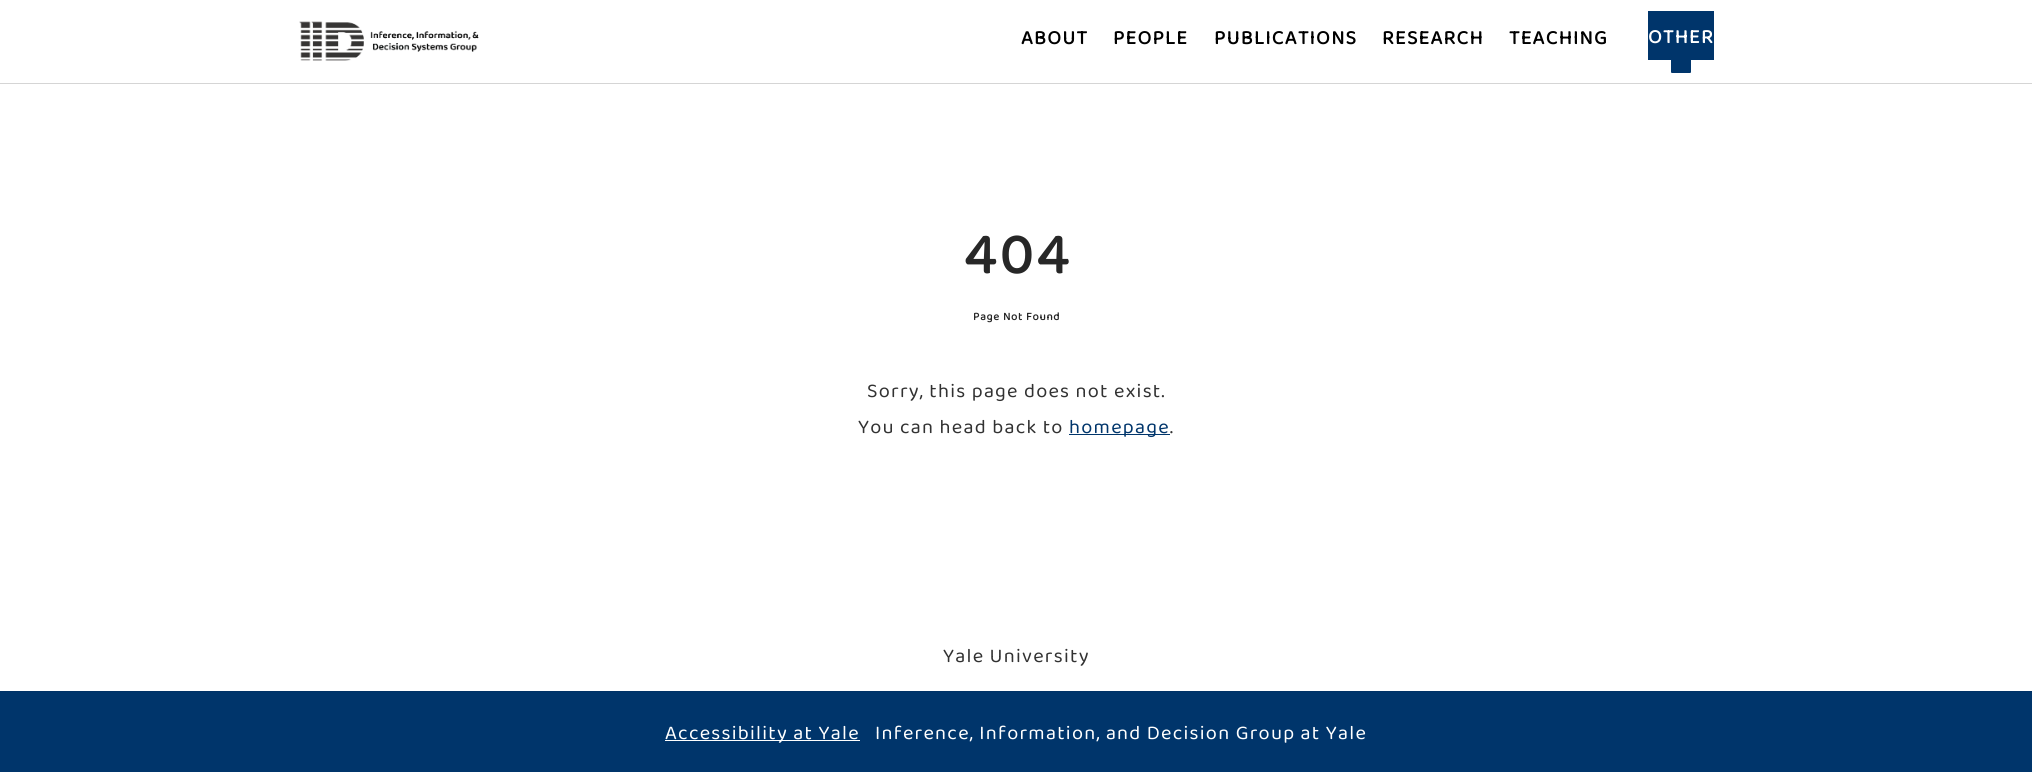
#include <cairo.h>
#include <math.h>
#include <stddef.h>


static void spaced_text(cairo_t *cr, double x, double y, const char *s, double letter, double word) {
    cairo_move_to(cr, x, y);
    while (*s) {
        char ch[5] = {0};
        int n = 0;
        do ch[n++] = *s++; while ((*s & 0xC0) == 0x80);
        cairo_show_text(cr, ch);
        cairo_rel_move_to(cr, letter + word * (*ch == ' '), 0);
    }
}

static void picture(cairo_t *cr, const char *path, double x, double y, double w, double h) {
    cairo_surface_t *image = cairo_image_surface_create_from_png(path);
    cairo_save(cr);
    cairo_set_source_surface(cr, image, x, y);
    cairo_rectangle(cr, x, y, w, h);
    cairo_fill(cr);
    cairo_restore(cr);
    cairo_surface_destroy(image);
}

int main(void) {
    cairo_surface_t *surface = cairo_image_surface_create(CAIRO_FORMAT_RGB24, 2032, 772);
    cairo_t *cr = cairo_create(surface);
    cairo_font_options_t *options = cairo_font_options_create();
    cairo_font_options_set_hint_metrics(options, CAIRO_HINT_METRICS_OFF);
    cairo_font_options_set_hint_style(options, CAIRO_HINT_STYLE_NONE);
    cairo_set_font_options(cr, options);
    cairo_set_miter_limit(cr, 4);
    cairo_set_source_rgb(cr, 1, 1, 1);
    cairo_paint(cr);
    cairo_set_source_rgb(cr, 0.835, 0.835, 0.835);
    cairo_rectangle(cr, 0, 83, 2032, 1);
    cairo_fill(cr);
    picture(cr, "img1.png", 299, 21, 180, 40);
    cairo_select_font_face(cr, "Baloo Chettan 2", CAIRO_FONT_SLANT_NORMAL, CAIRO_FONT_WEIGHT_BOLD);
    cairo_set_font_size(cr, 20);
    cairo_set_source_rgb(cr, 0, 0, 0);
    spaced_text(cr, 1021, 44, "ABOUT", 1.25, 0);
    spaced_text(cr, 1113, 44, "PEOPLE", 1.25, 0);
    spaced_text(cr, 1214, 44, "PUBLICATIONS", 1.25, 0);
    spaced_text(cr, 1382, 44, "RESEARCH", 1.25, 0);
    spaced_text(cr, 1509, 44, "TEACHING", 1.25, 0);
    cairo_set_source_rgb(cr, 0, 0.208, 0.42);
    cairo_new_path(cr);
    cairo_move_to(cr, 1672, 50);
    cairo_line_to(cr, 1681, 50);
    cairo_line_to(cr, 1681, 73);
    cairo_line_to(cr, 1672, 73);
    cairo_curve_to(cr, 1671.5, 73, 1671, 72.5, 1671, 72);
    cairo_line_to(cr, 1671, 51);
    cairo_curve_to(cr, 1671, 50.5, 1671.5, 50, 1672, 50);
    cairo_close_path(cr);
    cairo_fill(cr);
    cairo_rectangle(cr, 1648, 11, 66, 49);
    cairo_fill(cr);
    cairo_set_source_rgb(cr, 1, 1, 1);
    spaced_text(cr, 1648, 43, "OTHER", 1.25, 0);
    cairo_set_source_rgb(cr, 0, 0.208, 0.42);
    cairo_new_path(cr);
    cairo_move_to(cr, 1681, 50);
    cairo_line_to(cr, 1690, 50);
    cairo_curve_to(cr, 1690.5, 50, 1691, 50.5, 1691, 51);
    cairo_line_to(cr, 1691, 72);
    cairo_curve_to(cr, 1691, 72.5, 1690.5, 73, 1690, 73);
    cairo_line_to(cr, 1681, 73);
    cairo_close_path(cr);
    cairo_fill(cr);
    cairo_set_font_size(cr, 58);
    cairo_set_source_rgb(cr, 0.153, 0.153, 0.153);
    spaced_text(cr, 964, 273, "404", 3.5, 0);
    cairo_set_font_size(cr, 11.25);
    spaced_text(cr, 973, 320, "Page Not Found", 0.75, 0);
    cairo_select_font_face(cr, "Baloo Chettan 2", CAIRO_FONT_SLANT_NORMAL, CAIRO_FONT_WEIGHT_NORMAL);
    cairo_set_font_size(cr, 20);
    cairo_set_source_rgb(cr, 0.196, 0.196, 0.196);
    spaced_text(cr, 867, 397, "Sorry, this page does not exist.", 1.25, 0);
    spaced_text(cr, 858, 433, "You can head back to", 1.25, 0);
    cairo_set_source_rgb(cr, 0, 0.208, 0.42);
    cairo_rectangle(cr, 1069, 434, 101, 1);
    cairo_fill(cr);
    spaced_text(cr, 1069, 433, "homepage", 1.25, 0);
    cairo_set_source_rgb(cr, 0.196, 0.196, 0.196);
    spaced_text(cr, 1170, 433, ".", 1.25, 0);
    spaced_text(cr, 943, 662, "Yale University", 1.25, 0);
    cairo_set_source_rgb(cr, 0, 0.208, 0.42);
    cairo_rectangle(cr, 0, 692, 2032, 80);
    cairo_fill(cr);
    cairo_set_source_rgb(cr, 0, 0.196, 0.4);
    cairo_rectangle(cr, 0, 691, 2032, 1);
    cairo_fill(cr);
    cairo_set_source_rgb(cr, 1, 1, 1);
    cairo_rectangle(cr, 665, 740, 195, 1);
    cairo_fill(cr);
    spaced_text(cr, 665, 739, "Accessibility at Yale", 1.25, 0);
    spaced_text(cr, 875, 739, "Inference, Information, and Decision Group at Yale", 1.25, 0);
    cairo_surface_write_to_png(surface, "page.png");
    cairo_font_options_destroy(options);
    cairo_destroy(cr);
    cairo_surface_destroy(surface);
    return 0;
}
